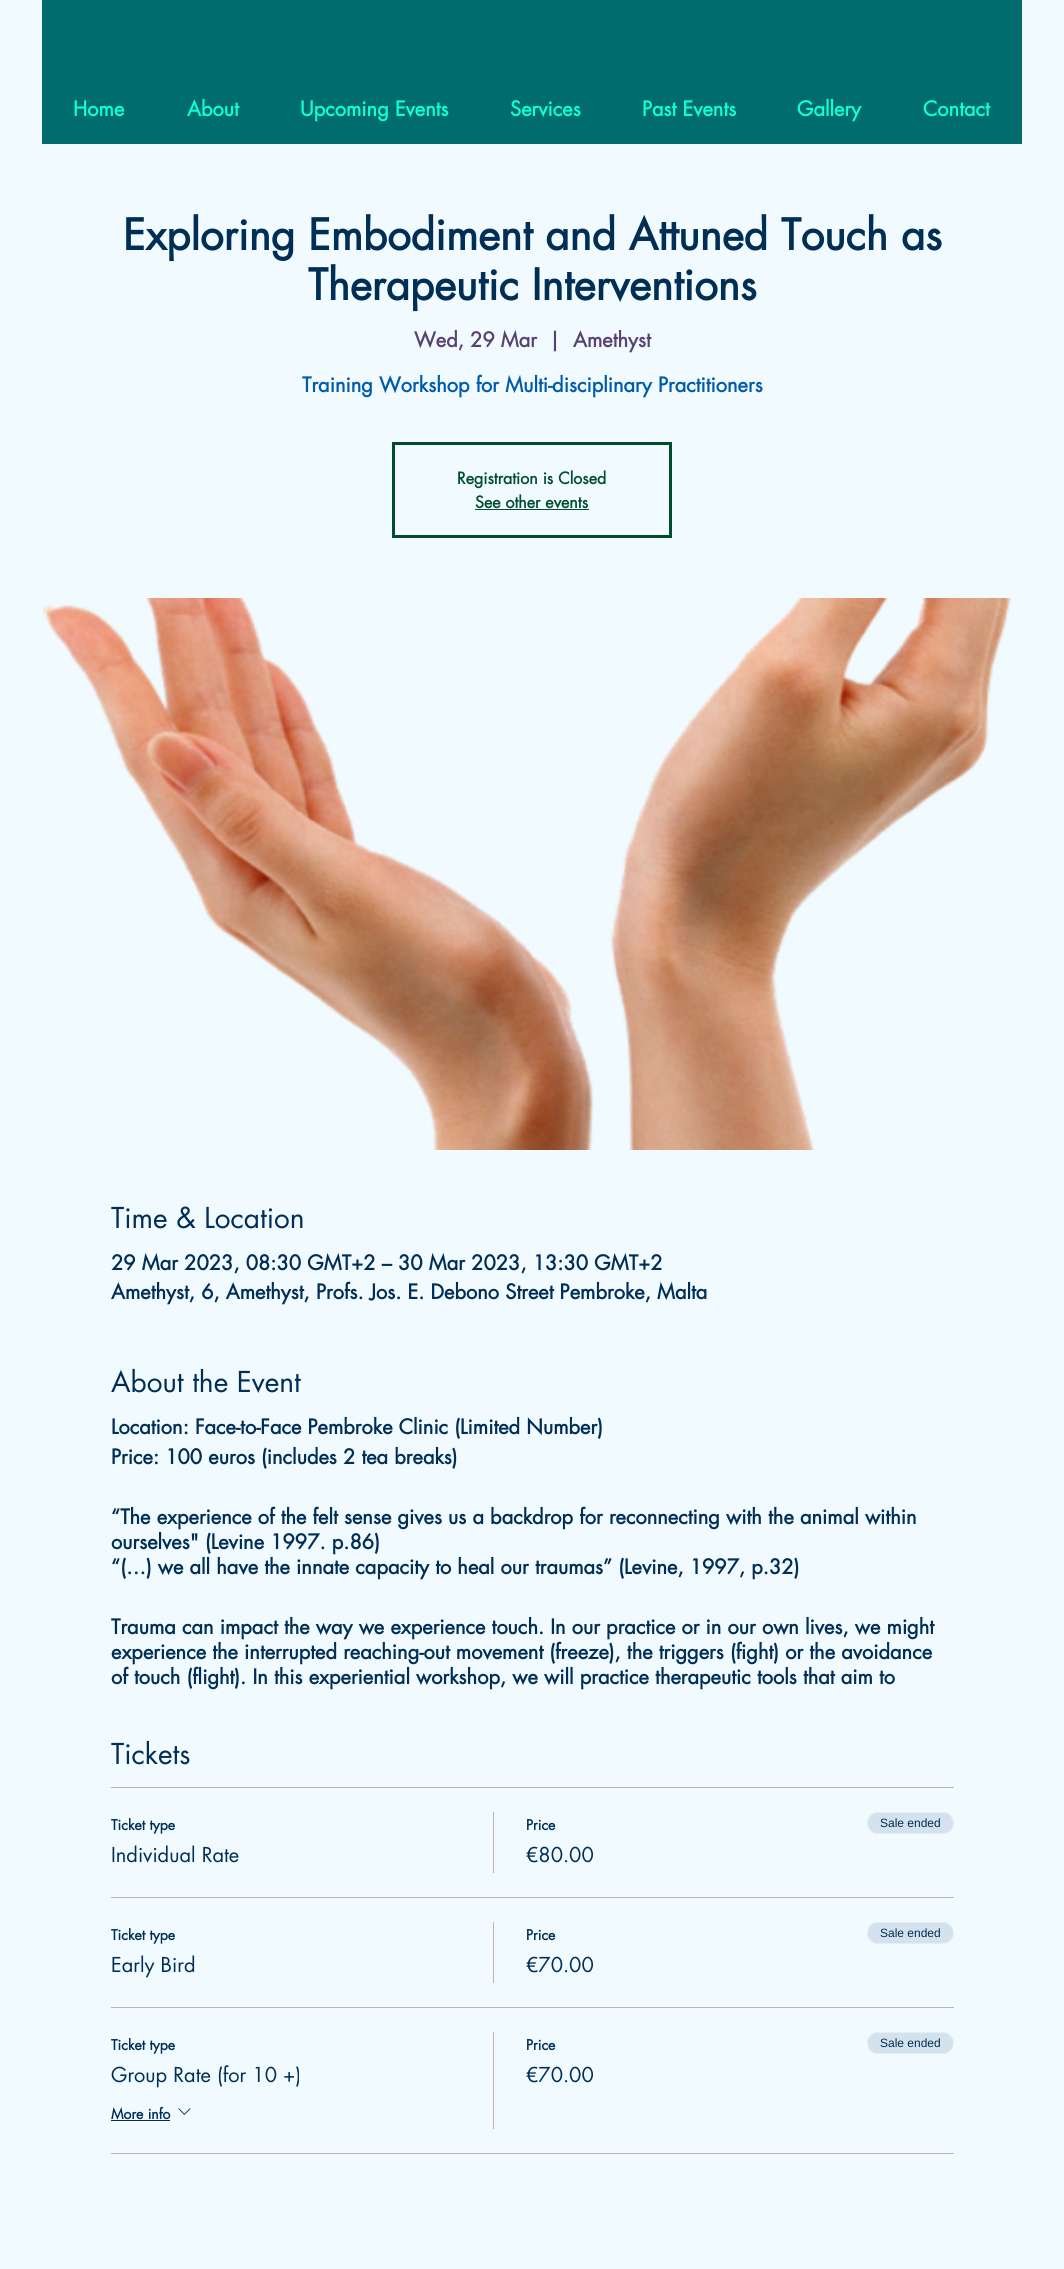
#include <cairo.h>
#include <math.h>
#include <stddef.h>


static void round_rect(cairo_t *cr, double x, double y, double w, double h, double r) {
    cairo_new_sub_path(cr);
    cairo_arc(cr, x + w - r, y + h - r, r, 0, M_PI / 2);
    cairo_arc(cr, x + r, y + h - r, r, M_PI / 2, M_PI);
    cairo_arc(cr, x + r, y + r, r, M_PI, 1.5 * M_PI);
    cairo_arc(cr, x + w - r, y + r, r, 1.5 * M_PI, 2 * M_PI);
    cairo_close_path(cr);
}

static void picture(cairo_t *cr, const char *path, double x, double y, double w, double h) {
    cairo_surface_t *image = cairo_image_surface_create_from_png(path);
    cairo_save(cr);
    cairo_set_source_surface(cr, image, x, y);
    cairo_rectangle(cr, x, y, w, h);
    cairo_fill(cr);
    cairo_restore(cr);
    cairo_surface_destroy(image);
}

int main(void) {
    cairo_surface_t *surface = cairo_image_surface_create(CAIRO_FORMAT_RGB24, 1064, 2269);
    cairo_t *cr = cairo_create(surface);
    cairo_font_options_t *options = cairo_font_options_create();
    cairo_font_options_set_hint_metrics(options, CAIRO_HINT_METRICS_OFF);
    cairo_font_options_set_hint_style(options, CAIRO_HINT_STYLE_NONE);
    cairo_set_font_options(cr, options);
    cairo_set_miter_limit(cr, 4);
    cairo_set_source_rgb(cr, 0.941, 0.98, 1);
    cairo_paint(cr);
    cairo_set_source_rgb(cr, 0, 0.424, 0.427);
    cairo_rectangle(cr, 42, 0, 980, 144);
    cairo_fill(cr);
    cairo_select_font_face(cr, "futura", CAIRO_FONT_SLANT_NORMAL, CAIRO_FONT_WEIGHT_BOLD);
    cairo_set_font_size(cr, 20);
    cairo_set_source_rgb(cr, 0.051, 1, 0.827);
    cairo_move_to(cr, 73, 116);
    cairo_show_text(cr, "Home");
    cairo_move_to(cr, 187, 116);
    cairo_show_text(cr, "About");
    cairo_move_to(cr, 300, 116);
    cairo_show_text(cr, "Upcoming Events");
    cairo_move_to(cr, 510, 116);
    cairo_show_text(cr, "Services");
    cairo_move_to(cr, 642, 116);
    cairo_show_text(cr, "Past Events");
    cairo_move_to(cr, 797, 116);
    cairo_show_text(cr, "Gallery");
    cairo_move_to(cr, 923, 116);
    cairo_show_text(cr, "Contact");
    cairo_set_font_size(cr, 42);
    cairo_set_source_rgb(cr, 0, 0.18, 0.333);
    cairo_move_to(cr, 123, 250);
    cairo_show_text(cr, "Exploring Embodiment and Attuned Touch as");
    cairo_move_to(cr, 308, 300);
    cairo_show_text(cr, "Therapeutic Interventions");
    cairo_set_font_size(cr, 20);
    cairo_set_source_rgb(cr, 0.349, 0.255, 0.443);
    cairo_move_to(cr, 414, 347);
    cairo_show_text(cr, "Wed, 29 Mar");
    cairo_move_to(cr, 549, 347);
    cairo_show_text(cr, "|");
    cairo_move_to(cr, 573, 347);
    cairo_show_text(cr, "Amethyst");
    cairo_set_source_rgb(cr, 0, 0.361, 0.667);
    cairo_move_to(cr, 302, 392);
    cairo_show_text(cr, "Training Workshop for Multi-disciplinary Practitioners");
    cairo_rectangle(cr, 393.5, 443.5, 277, 93);
    cairo_set_source_rgb(cr, 0, 0.302, 0.18);
    cairo_set_line_width(cr, 3);
    cairo_stroke(cr);
    cairo_set_font_size(cr, 16);
    cairo_move_to(cr, 457, 484);
    cairo_show_text(cr, "Registration is Closed");
    cairo_move_to(cr, 475, 508);
    cairo_show_text(cr, "See other events");
    cairo_rectangle(cr, 475, 509, 114, 1);
    cairo_fill(cr);
    picture(cr, "img1.png", 43, 598, 969, 552);
    cairo_select_font_face(cr, "futura", CAIRO_FONT_SLANT_NORMAL, CAIRO_FONT_WEIGHT_NORMAL);
    cairo_set_font_size(cr, 28);
    cairo_set_source_rgb(cr, 0, 0.18, 0.333);
    cairo_move_to(cr, 111, 1228);
    cairo_show_text(cr, "Time & Location");
    cairo_select_font_face(cr, "futura", CAIRO_FONT_SLANT_NORMAL, CAIRO_FONT_WEIGHT_BOLD);
    cairo_set_font_size(cr, 20);
    cairo_move_to(cr, 111, 1270);
    cairo_show_text(cr, "29 Mar 2023, 08:30 GMT+2 – 30 Mar 2023, 13:30 GMT+2");
    cairo_move_to(cr, 111, 1299);
    cairo_show_text(cr, "Amethyst, 6, Amethyst, Profs. Jos. E. Debono Street Pembroke, Malta");
    cairo_select_font_face(cr, "futura", CAIRO_FONT_SLANT_NORMAL, CAIRO_FONT_WEIGHT_NORMAL);
    cairo_set_font_size(cr, 28);
    cairo_move_to(cr, 111, 1392);
    cairo_show_text(cr, "About the Event");
    cairo_select_font_face(cr, "futura", CAIRO_FONT_SLANT_NORMAL, CAIRO_FONT_WEIGHT_BOLD);
    cairo_set_font_size(cr, 20);
    cairo_move_to(cr, 111, 1434);
    cairo_show_text(cr, "Location: Face-to-Face Pembroke Clinic (Limited Number)");
    cairo_move_to(cr, 111, 1464);
    cairo_show_text(cr, "Price: 100 euros (includes 2 tea breaks)");
    cairo_move_to(cr, 111, 1524);
    cairo_show_text(cr, "“The experience of the felt sense gives us a backdrop for reconnecting with the animal within");
    cairo_move_to(cr, 111, 1549);
    cairo_show_text(cr, "ourselves\" (Levine 1997. p.86)");
    cairo_move_to(cr, 111, 1574);
    cairo_show_text(cr, "“(…) we all have the innate capacity to heal our traumas” (Levine, 1997, p.32)");
    cairo_move_to(cr, 111, 1634);
    cairo_show_text(cr, "Trauma can impact the way we experience touch. In our practice or in our own lives, we might");
    cairo_move_to(cr, 111, 1659);
    cairo_show_text(cr, "experience the interrupted reaching-out movement (freeze), the triggers (fight) or the avoidance");
    cairo_move_to(cr, 111, 1684);
    cairo_show_text(cr, "of touch (flight). In this experiential workshop, we will practice therapeutic tools that aim to");
    cairo_select_font_face(cr, "futura", CAIRO_FONT_SLANT_NORMAL, CAIRO_FONT_WEIGHT_NORMAL);
    cairo_set_font_size(cr, 28);
    cairo_move_to(cr, 111, 1764);
    cairo_show_text(cr, "Tickets");
    cairo_set_source_rgb(cr, 0.753, 0.694, 0.725);
    cairo_rectangle(cr, 111, 1787, 843, 1);
    cairo_fill(cr);
    cairo_rectangle(cr, 111, 1897, 843, 1);
    cairo_fill(cr);
    cairo_select_font_face(cr, "futura", CAIRO_FONT_SLANT_NORMAL, CAIRO_FONT_WEIGHT_BOLD);
    cairo_set_font_size(cr, 14);
    cairo_set_source_rgb(cr, 0, 0.18, 0.333);
    cairo_move_to(cr, 111, 1830);
    cairo_show_text(cr, "Ticket type");
    cairo_select_font_face(cr, "futura", CAIRO_FONT_SLANT_NORMAL, CAIRO_FONT_WEIGHT_NORMAL);
    cairo_set_font_size(cr, 20);
    cairo_move_to(cr, 111, 1862);
    cairo_show_text(cr, "Individual Rate");
    cairo_set_source_rgb(cr, 0.753, 0.694, 0.725);
    cairo_rectangle(cr, 493, 1812, 1, 61);
    cairo_fill(cr);
    cairo_select_font_face(cr, "futura", CAIRO_FONT_SLANT_NORMAL, CAIRO_FONT_WEIGHT_BOLD);
    cairo_set_font_size(cr, 14);
    cairo_set_source_rgb(cr, 0, 0.18, 0.333);
    cairo_move_to(cr, 526, 1830);
    cairo_show_text(cr, "Price");
    cairo_select_font_face(cr, "futura", CAIRO_FONT_SLANT_NORMAL, CAIRO_FONT_WEIGHT_NORMAL);
    cairo_set_font_size(cr, 20);
    cairo_move_to(cr, 526, 1862);
    cairo_show_text(cr, "€80.00");
    cairo_set_source_rgb(cr, 0.827, 0.886, 0.922);
    round_rect(cr, 867, 1812, 87, 22, 11);
    cairo_fill(cr);
    round_rect(cr, 867.5, 1812.5, 86, 21, 10.5);
    cairo_set_source_rgba(cr, 1, 1, 1, 0.4);
    cairo_set_line_width(cr, 1);
    cairo_stroke(cr);
    cairo_select_font_face(cr, "Liberation Sans", CAIRO_FONT_SLANT_NORMAL, CAIRO_FONT_WEIGHT_NORMAL);
    cairo_set_font_size(cr, 12);
    cairo_set_source_rgb(cr, 0, 0.18, 0.333);
    cairo_move_to(cr, 880, 1827);
    cairo_show_text(cr, "Sale ended");
    cairo_set_source_rgb(cr, 0.753, 0.694, 0.725);
    cairo_rectangle(cr, 111, 2007, 843, 1);
    cairo_fill(cr);
    cairo_select_font_face(cr, "futura", CAIRO_FONT_SLANT_NORMAL, CAIRO_FONT_WEIGHT_BOLD);
    cairo_set_font_size(cr, 14);
    cairo_set_source_rgb(cr, 0, 0.18, 0.333);
    cairo_move_to(cr, 111, 1940);
    cairo_show_text(cr, "Ticket type");
    cairo_select_font_face(cr, "futura", CAIRO_FONT_SLANT_NORMAL, CAIRO_FONT_WEIGHT_NORMAL);
    cairo_set_font_size(cr, 20);
    cairo_move_to(cr, 111, 1972);
    cairo_show_text(cr, "Early Bird");
    cairo_set_source_rgb(cr, 0.753, 0.694, 0.725);
    cairo_rectangle(cr, 493, 1922, 1, 61);
    cairo_fill(cr);
    cairo_select_font_face(cr, "futura", CAIRO_FONT_SLANT_NORMAL, CAIRO_FONT_WEIGHT_BOLD);
    cairo_set_font_size(cr, 14);
    cairo_set_source_rgb(cr, 0, 0.18, 0.333);
    cairo_move_to(cr, 526, 1940);
    cairo_show_text(cr, "Price");
    cairo_select_font_face(cr, "futura", CAIRO_FONT_SLANT_NORMAL, CAIRO_FONT_WEIGHT_NORMAL);
    cairo_set_font_size(cr, 20);
    cairo_move_to(cr, 526, 1972);
    cairo_show_text(cr, "€70.00");
    cairo_set_source_rgb(cr, 0.827, 0.886, 0.922);
    round_rect(cr, 867, 1922, 87, 22, 11);
    cairo_fill(cr);
    round_rect(cr, 867.5, 1922.5, 86, 21, 10.5);
    cairo_set_source_rgba(cr, 1, 1, 1, 0.4);
    cairo_stroke(cr);
    cairo_select_font_face(cr, "Liberation Sans", CAIRO_FONT_SLANT_NORMAL, CAIRO_FONT_WEIGHT_NORMAL);
    cairo_set_font_size(cr, 12);
    cairo_set_source_rgb(cr, 0, 0.18, 0.333);
    cairo_move_to(cr, 880, 1937);
    cairo_show_text(cr, "Sale ended");
    cairo_set_source_rgb(cr, 0.753, 0.694, 0.725);
    cairo_rectangle(cr, 111, 2153, 843, 1);
    cairo_fill(cr);
    cairo_select_font_face(cr, "futura", CAIRO_FONT_SLANT_NORMAL, CAIRO_FONT_WEIGHT_BOLD);
    cairo_set_font_size(cr, 14);
    cairo_set_source_rgb(cr, 0, 0.18, 0.333);
    cairo_move_to(cr, 111, 2050);
    cairo_show_text(cr, "Ticket type");
    cairo_select_font_face(cr, "futura", CAIRO_FONT_SLANT_NORMAL, CAIRO_FONT_WEIGHT_NORMAL);
    cairo_set_font_size(cr, 20);
    cairo_move_to(cr, 111, 2082);
    cairo_show_text(cr, "Group Rate (for 10 +)");
    cairo_select_font_face(cr, "futura", CAIRO_FONT_SLANT_NORMAL, CAIRO_FONT_WEIGHT_BOLD);
    cairo_set_font_size(cr, 14);
    cairo_move_to(cr, 111, 2119);
    cairo_show_text(cr, "More info");
    cairo_rectangle(cr, 111, 2120, 59, 1);
    cairo_fill(cr);
    picture(cr, "img2.png", 178, 2108, 13, 7);
    cairo_set_source_rgb(cr, 0.753, 0.694, 0.725);
    cairo_rectangle(cr, 493, 2032, 1, 97);
    cairo_fill(cr);
    cairo_set_source_rgb(cr, 0, 0.18, 0.333);
    cairo_move_to(cr, 526, 2050);
    cairo_show_text(cr, "Price");
    cairo_select_font_face(cr, "futura", CAIRO_FONT_SLANT_NORMAL, CAIRO_FONT_WEIGHT_NORMAL);
    cairo_set_font_size(cr, 20);
    cairo_move_to(cr, 526, 2082);
    cairo_show_text(cr, "€70.00");
    cairo_set_source_rgb(cr, 0.827, 0.886, 0.922);
    round_rect(cr, 867, 2032, 87, 22, 11);
    cairo_fill(cr);
    round_rect(cr, 867.5, 2032.5, 86, 21, 10.5);
    cairo_set_source_rgba(cr, 1, 1, 1, 0.4);
    cairo_stroke(cr);
    cairo_select_font_face(cr, "Liberation Sans", CAIRO_FONT_SLANT_NORMAL, CAIRO_FONT_WEIGHT_NORMAL);
    cairo_set_font_size(cr, 12);
    cairo_set_source_rgb(cr, 0, 0.18, 0.333);
    cairo_move_to(cr, 880, 2047);
    cairo_show_text(cr, "Sale ended");
    cairo_surface_write_to_png(surface, "page.png");
    cairo_font_options_destroy(options);
    cairo_destroy(cr);
    cairo_surface_destroy(surface);
    return 0;
}
